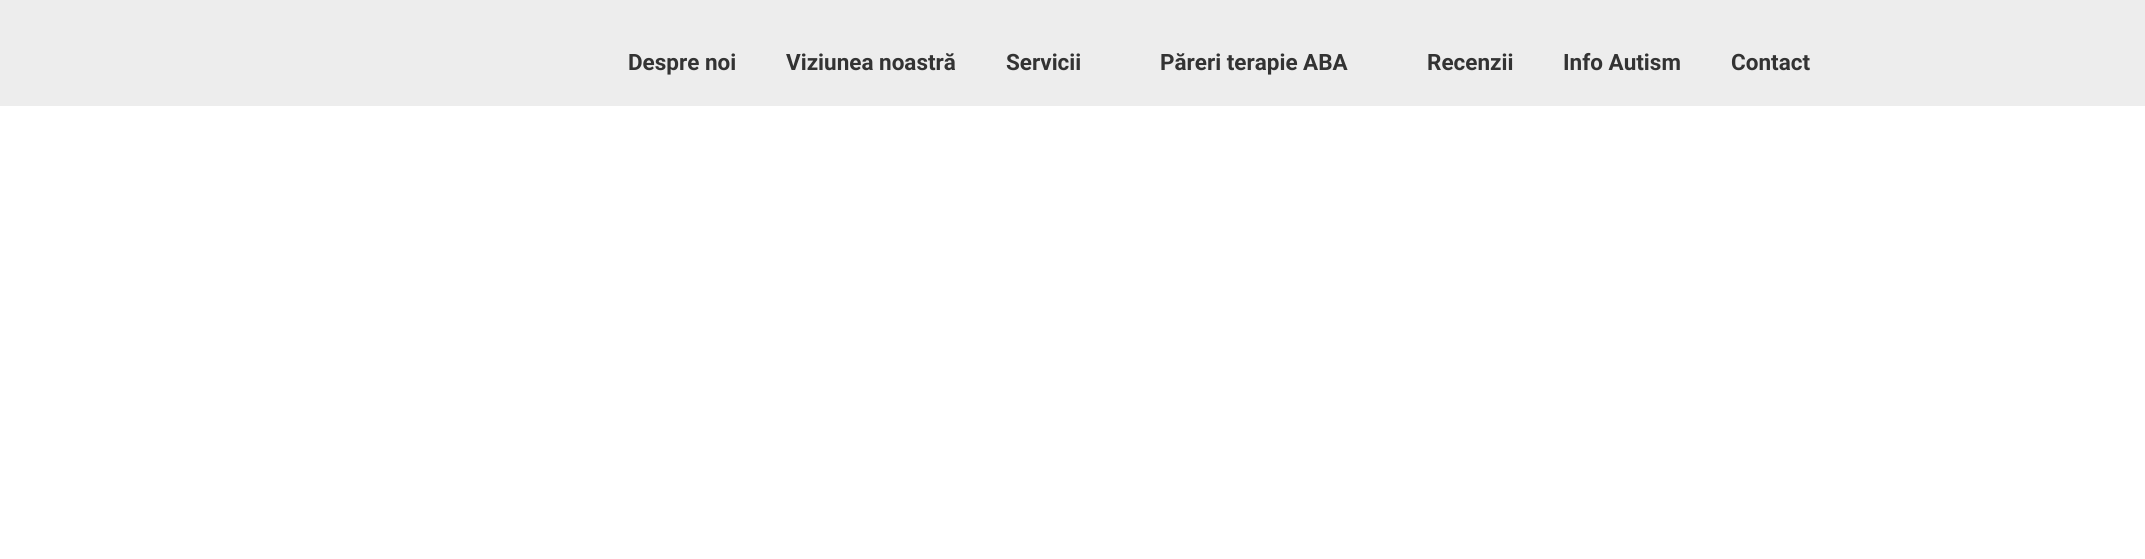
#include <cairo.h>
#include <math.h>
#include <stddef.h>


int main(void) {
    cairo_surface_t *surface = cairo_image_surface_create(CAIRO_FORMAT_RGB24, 2145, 559);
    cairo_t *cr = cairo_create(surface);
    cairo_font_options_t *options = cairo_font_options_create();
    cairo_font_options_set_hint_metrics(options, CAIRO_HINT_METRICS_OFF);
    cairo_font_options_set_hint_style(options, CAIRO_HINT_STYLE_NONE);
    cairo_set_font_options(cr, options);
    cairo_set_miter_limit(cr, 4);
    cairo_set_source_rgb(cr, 1, 1, 1);
    cairo_paint(cr);
    cairo_set_source_rgb(cr, 0.929, 0.929, 0.929);
    cairo_rectangle(cr, 0, 0, 2145, 106);
    cairo_fill(cr);
    cairo_select_font_face(cr, "Roboto", CAIRO_FONT_SLANT_NORMAL, CAIRO_FONT_WEIGHT_BOLD);
    cairo_set_font_size(cr, 22.5);
    cairo_set_source_rgb(cr, 0.2, 0.2, 0.2);
    cairo_move_to(cr, 628, 70);
    cairo_show_text(cr, "Despre noi");
    cairo_move_to(cr, 786, 70);
    cairo_show_text(cr, "Viziunea noastră");
    cairo_move_to(cr, 1006, 70);
    cairo_show_text(cr, "Servicii");
    cairo_move_to(cr, 1160, 70);
    cairo_show_text(cr, "Păreri terapie ABA");
    cairo_move_to(cr, 1427, 70);
    cairo_show_text(cr, "Recenzii");
    cairo_move_to(cr, 1563, 70);
    cairo_show_text(cr, "Info Autism");
    cairo_move_to(cr, 1731, 70);
    cairo_show_text(cr, "Contact");
    cairo_surface_write_to_png(surface, "page.png");
    cairo_font_options_destroy(options);
    cairo_destroy(cr);
    cairo_surface_destroy(surface);
    return 0;
}
